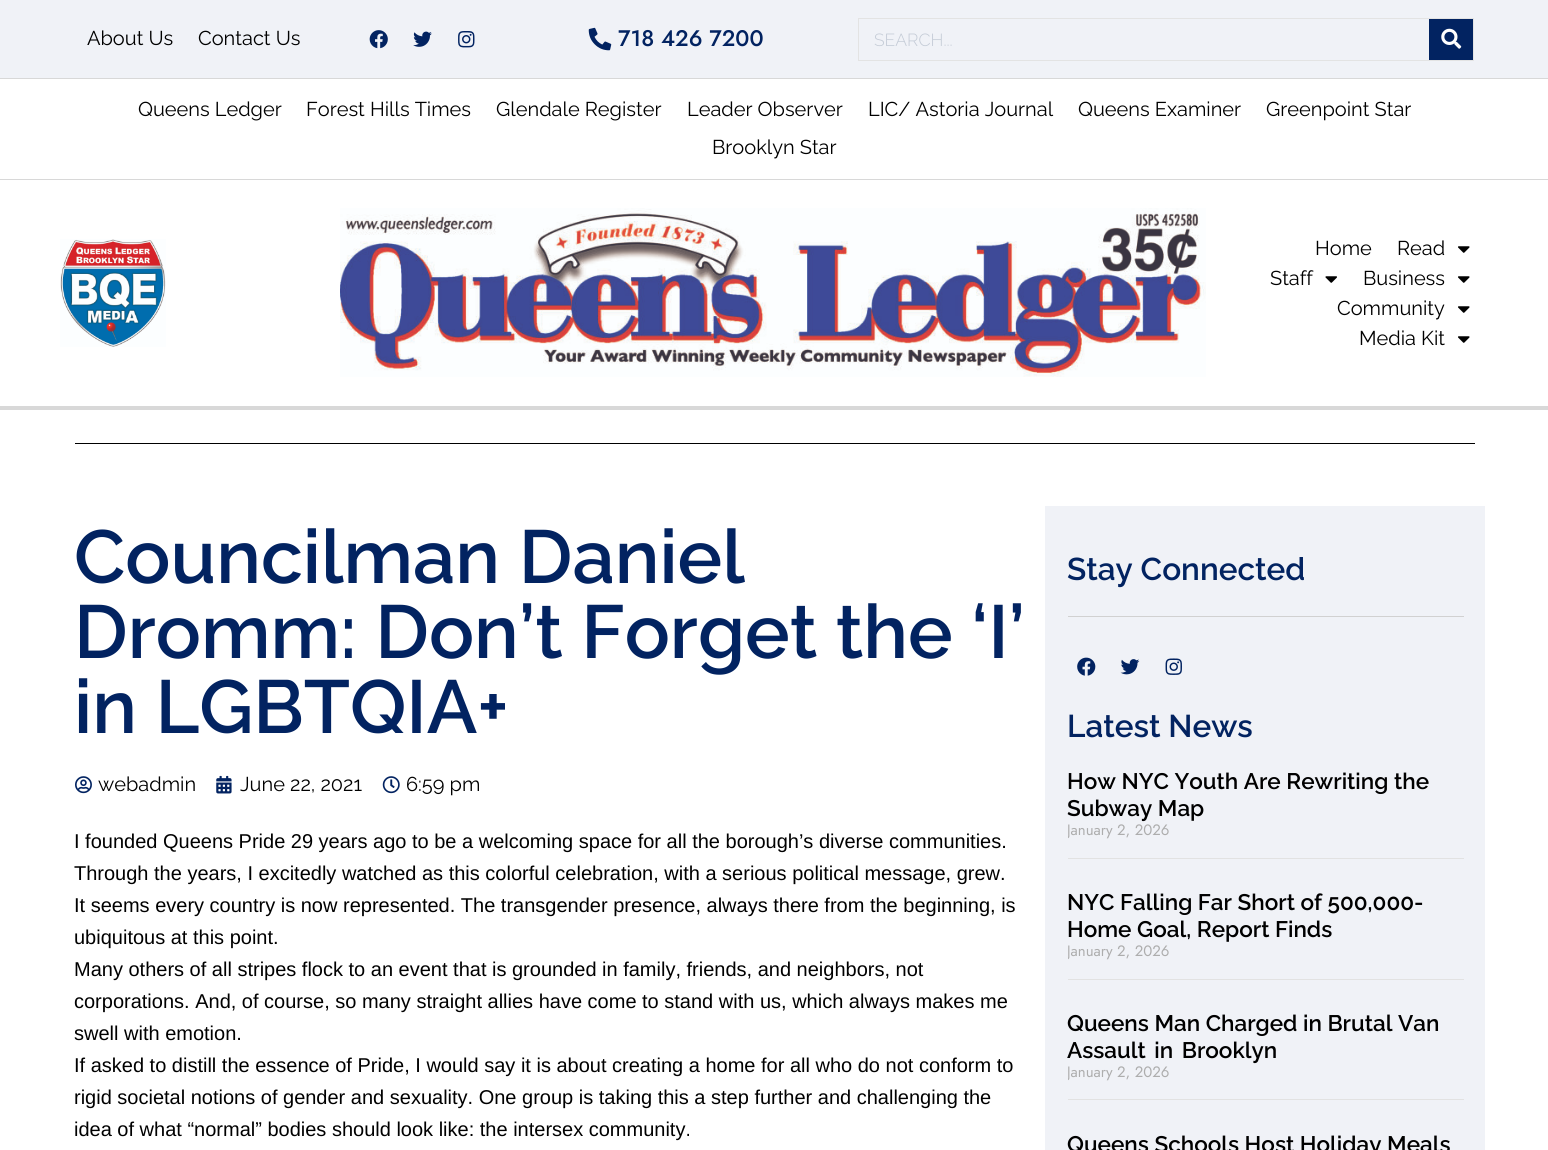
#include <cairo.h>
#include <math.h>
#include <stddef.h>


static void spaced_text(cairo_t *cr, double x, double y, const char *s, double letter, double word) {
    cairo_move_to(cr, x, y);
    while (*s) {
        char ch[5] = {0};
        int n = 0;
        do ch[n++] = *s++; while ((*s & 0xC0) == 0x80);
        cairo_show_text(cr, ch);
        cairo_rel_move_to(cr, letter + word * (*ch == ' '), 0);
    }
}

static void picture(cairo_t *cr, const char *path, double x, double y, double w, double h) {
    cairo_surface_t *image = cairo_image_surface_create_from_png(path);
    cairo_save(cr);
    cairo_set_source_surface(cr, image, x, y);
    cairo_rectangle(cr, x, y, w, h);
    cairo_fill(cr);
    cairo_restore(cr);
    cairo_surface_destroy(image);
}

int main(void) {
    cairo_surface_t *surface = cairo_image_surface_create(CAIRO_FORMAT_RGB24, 1548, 1150);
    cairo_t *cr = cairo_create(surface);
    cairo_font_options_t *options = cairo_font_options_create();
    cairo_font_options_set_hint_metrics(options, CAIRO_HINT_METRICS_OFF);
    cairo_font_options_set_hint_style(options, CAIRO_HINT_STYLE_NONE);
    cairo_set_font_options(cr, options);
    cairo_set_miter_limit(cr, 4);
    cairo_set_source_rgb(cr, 1, 1, 1);
    cairo_paint(cr);
    cairo_set_source_rgb(cr, 0.941, 0.949, 0.965);
    cairo_rectangle(cr, 0, 0, 1548, 78);
    cairo_fill(cr);
    cairo_select_font_face(cr, "Raleway", CAIRO_FONT_SLANT_NORMAL, CAIRO_FONT_WEIGHT_NORMAL);
    cairo_set_font_size(cr, 20);
    cairo_set_source_rgb(cr, 0, 0, 0);
    cairo_move_to(cr, 87, 45);
    cairo_show_text(cr, "About Us");
    cairo_move_to(cr, 198, 45);
    cairo_show_text(cr, "Contact Us");
    picture(cr, "img1.png", 369, 30, 19, 19);
    picture(cr, "img2.png", 413, 31, 19, 16);
    picture(cr, "img3.png", 458, 31, 17, 17);
    picture(cr, "img4.png", 588, 27, 24, 24);
    cairo_select_font_face(cr, "Jost Medium", CAIRO_FONT_SLANT_NORMAL, CAIRO_FONT_WEIGHT_NORMAL);
    cairo_set_font_size(cr, 22.5);
    cairo_set_source_rgb(cr, 0.008, 0.137, 0.38);
    cairo_move_to(cr, 618, 46);
    cairo_show_text(cr, "718 426 7200");
    cairo_rectangle(cr, 858.5, 18.5, 615, 42);
    cairo_set_source_rgb(cr, 0.89, 0.89, 0.89);
    cairo_set_line_width(cr, 1);
    cairo_stroke(cr);
    cairo_select_font_face(cr, "Raleway Light", CAIRO_FONT_SLANT_NORMAL, CAIRO_FONT_WEIGHT_NORMAL);
    cairo_set_font_size(cr, 17.5);
    cairo_set_source_rgb(cr, 0.769, 0.796, 0.839);
    cairo_move_to(cr, 874, 46);
    cairo_show_text(cr, "SEARCH...");
    cairo_set_source_rgb(cr, 0.008, 0.137, 0.38);
    cairo_rectangle(cr, 1429, 19, 44, 41);
    cairo_fill(cr);
    picture(cr, "img5.png", 1441, 28, 21, 21);
    cairo_set_source_rgb(cr, 0.847, 0.847, 0.847);
    cairo_rectangle(cr, 0, 78, 1548, 1);
    cairo_fill(cr);
    cairo_rectangle(cr, 0, 179, 1548, 1);
    cairo_fill(cr);
    cairo_select_font_face(cr, "Raleway", CAIRO_FONT_SLANT_NORMAL, CAIRO_FONT_WEIGHT_NORMAL);
    cairo_set_font_size(cr, 20);
    cairo_set_source_rgb(cr, 0, 0, 0);
    cairo_move_to(cr, 138, 116);
    cairo_show_text(cr, "Queens Ledger");
    cairo_move_to(cr, 306, 116);
    cairo_show_text(cr, "Forest Hills Times");
    cairo_move_to(cr, 496, 116);
    cairo_show_text(cr, "Glendale Register");
    cairo_move_to(cr, 687, 116);
    cairo_show_text(cr, "Leader Observer");
    cairo_move_to(cr, 868, 116);
    cairo_show_text(cr, "LIC/ Astoria Journal");
    cairo_move_to(cr, 1078, 116);
    cairo_show_text(cr, "Queens Examiner");
    cairo_move_to(cr, 1266, 116);
    cairo_show_text(cr, "Greenpoint Star");
    cairo_move_to(cr, 712, 154);
    cairo_show_text(cr, "Brooklyn Star");
    cairo_set_source_rgb(cr, 0.847, 0.847, 0.847);
    cairo_rectangle(cr, 0, 406, 1548, 4);
    cairo_fill(cr);
    picture(cr, "img6.png", 60, 239, 106, 108);
    picture(cr, "img7.png", 340, 208, 866, 169);
    cairo_set_source_rgb(cr, 0, 0, 0);
    cairo_move_to(cr, 1315, 255);
    cairo_show_text(cr, "Home");
    cairo_move_to(cr, 1397, 255);
    cairo_show_text(cr, "Read");
    picture(cr, "img8.png", 1458, 246, 12, 7);
    cairo_move_to(cr, 1270, 285);
    cairo_show_text(cr, "Staff");
    picture(cr, "img9.png", 1325, 276, 12, 7);
    cairo_move_to(cr, 1363, 285);
    cairo_show_text(cr, "Business");
    picture(cr, "img8.png", 1458, 276, 12, 7);
    cairo_move_to(cr, 1337, 315);
    cairo_show_text(cr, "Community");
    picture(cr, "img8.png", 1458, 306, 12, 7);
    cairo_move_to(cr, 1359, 345);
    cairo_show_text(cr, "Media Kit");
    picture(cr, "img8.png", 1458, 336, 12, 7);
    cairo_rectangle(cr, 75, 443, 1400, 1);
    cairo_fill(cr);
    cairo_select_font_face(cr, "Raleway SemiBold", CAIRO_FONT_SLANT_NORMAL, CAIRO_FONT_WEIGHT_NORMAL);
    cairo_set_font_size(cr, 75);
    cairo_set_source_rgb(cr, 0.008, 0.137, 0.38);
    cairo_move_to(cr, 74, 583);
    cairo_show_text(cr, "Councilman Daniel");
    cairo_move_to(cr, 74, 658);
    cairo_show_text(cr, "Dromm: Don’t Forget the ‘I’");
    cairo_move_to(cr, 74, 733);
    cairo_show_text(cr, "in LGBTQIA+");
    picture(cr, "img10.png", 75, 776, 17, 18);
    cairo_select_font_face(cr, "Raleway", CAIRO_FONT_SLANT_NORMAL, CAIRO_FONT_WEIGHT_NORMAL);
    cairo_set_font_size(cr, 20);
    cairo_set_source_rgb(cr, 0, 0, 0);
    cairo_move_to(cr, 98, 791);
    cairo_show_text(cr, "webadmin");
    picture(cr, "img11.png", 216, 775, 16, 19);
    cairo_move_to(cr, 240, 791);
    cairo_show_text(cr, "June 22, 2021");
    picture(cr, "img12.png", 382, 776, 18, 18);
    cairo_move_to(cr, 406, 791);
    cairo_show_text(cr, "6:59 pm");
    cairo_select_font_face(cr, "Liberation Sans", CAIRO_FONT_SLANT_NORMAL, CAIRO_FONT_WEIGHT_NORMAL);
    cairo_move_to(cr, 74, 848);
    cairo_show_text(cr, "I founded Queens Pride 29 years ago to be a welcoming space for all the borough’s diverse communities.");
    cairo_move_to(cr, 74, 880);
    cairo_show_text(cr, "Through the years, I excitedly watched as this colorful celebration, with a serious political message, grew.");
    cairo_move_to(cr, 74, 912);
    cairo_show_text(cr, "It seems every country is now represented. The transgender presence, always there from the beginning, is");
    cairo_move_to(cr, 74, 944);
    cairo_show_text(cr, "ubiquitous at this point.");
    cairo_move_to(cr, 74, 976);
    cairo_show_text(cr, "Many others of all stripes flock to an event that is grounded in family, friends, and neighbors, not");
    cairo_move_to(cr, 74, 1008);
    cairo_show_text(cr, "corporations. And, of course, so many straight allies have come to stand with us, which always makes me");
    cairo_move_to(cr, 74, 1040);
    cairo_show_text(cr, "swell with emotion.");
    cairo_move_to(cr, 74, 1072);
    cairo_show_text(cr, "If asked to distill the essence of Pride, I would say it is about creating a home for all who do not conform to");
    cairo_move_to(cr, 74, 1104);
    cairo_show_text(cr, "rigid societal notions of gender and sexuality. One group is taking this a step further and challenging the");
    cairo_move_to(cr, 74, 1136);
    cairo_show_text(cr, "idea of what “normal” bodies should look like: the intersex community.");
    cairo_set_source_rgb(cr, 0.941, 0.949, 0.965);
    cairo_rectangle(cr, 1045, 506, 440, 644);
    cairo_fill(cr);
    cairo_select_font_face(cr, "Raleway SemiBold", CAIRO_FONT_SLANT_NORMAL, CAIRO_FONT_WEIGHT_NORMAL);
    cairo_set_font_size(cr, 31.5);
    cairo_set_source_rgb(cr, 0.008, 0.137, 0.38);
    cairo_move_to(cr, 1067, 580);
    cairo_show_text(cr, "Stay Connected");
    cairo_set_source_rgb(cr, 0.82, 0.82, 0.82);
    cairo_rectangle(cr, 1068, 616, 396, 1);
    cairo_fill(cr);
    picture(cr, "img13.png", 1077, 657, 19, 19);
    picture(cr, "img14.png", 1120, 659, 20, 16);
    picture(cr, "img15.png", 1165, 658, 17, 17);
    cairo_set_source_rgb(cr, 0.008, 0.137, 0.38);
    cairo_move_to(cr, 1067, 737);
    cairo_show_text(cr, "Latest News");
    cairo_set_source_rgb(cr, 0.886, 0.886, 0.886);
    cairo_rectangle(cr, 1068, 858, 396, 1);
    cairo_fill(cr);
    cairo_set_font_size(cr, 22.5);
    cairo_set_source_rgb(cr, 0, 0, 0);
    cairo_move_to(cr, 1067, 789);
    cairo_show_text(cr, "How NYC Youth Are Rewriting the");
    cairo_move_to(cr, 1067, 816);
    cairo_show_text(cr, "Subway Map");
    cairo_save(cr);
    cairo_rectangle(cr, 1068, 768, 396, 90);
    cairo_clip(cr);
    cairo_select_font_face(cr, "Jost", CAIRO_FONT_SLANT_NORMAL, CAIRO_FONT_WEIGHT_NORMAL);
    cairo_set_font_size(cr, 15);
    cairo_set_source_rgb(cr, 0.678, 0.678, 0.678);
    cairo_move_to(cr, 1067, 835);
    cairo_show_text(cr, "January 2, 2026");
    cairo_restore(cr);
    cairo_set_source_rgb(cr, 0.886, 0.886, 0.886);
    cairo_rectangle(cr, 1068, 979, 396, 1);
    cairo_fill(cr);
    cairo_set_source_rgb(cr, 0, 0, 0);
    cairo_move_to(cr, 1067, 910);
    cairo_show_text(cr, "NYC Falling Far Short of 500,000-");
    cairo_move_to(cr, 1067, 937);
    cairo_show_text(cr, "Home Goal, Report Finds");
    cairo_save(cr);
    cairo_rectangle(cr, 1068, 889, 396, 90);
    cairo_clip(cr);
    cairo_select_font_face(cr, "Jost", CAIRO_FONT_SLANT_NORMAL, CAIRO_FONT_WEIGHT_NORMAL);
    cairo_set_font_size(cr, 15);
    cairo_set_source_rgb(cr, 0.678, 0.678, 0.678);
    cairo_move_to(cr, 1067, 956);
    cairo_show_text(cr, "January 2, 2026");
    cairo_restore(cr);
    cairo_set_source_rgb(cr, 0.886, 0.886, 0.886);
    cairo_rectangle(cr, 1068, 1099, 396, 1);
    cairo_fill(cr);
    cairo_set_source_rgb(cr, 0, 0, 0);
    cairo_move_to(cr, 1067, 1031);
    cairo_show_text(cr, "Queens Man Charged in Brutal Van");
    spaced_text(cr, 1067, 1058, "Assault in Brooklyn", 0, 3);
    cairo_save(cr);
    cairo_rectangle(cr, 1068, 1010, 396, 89);
    cairo_clip(cr);
    cairo_select_font_face(cr, "Jost", CAIRO_FONT_SLANT_NORMAL, CAIRO_FONT_WEIGHT_NORMAL);
    cairo_set_font_size(cr, 15);
    cairo_set_source_rgb(cr, 0.678, 0.678, 0.678);
    cairo_move_to(cr, 1067, 1077);
    cairo_show_text(cr, "January 2, 2026");
    cairo_restore(cr);
    cairo_move_to(cr, 1067, 1152);
    cairo_show_text(cr, "Queens Schools Host Holiday Meals");
    cairo_surface_write_to_png(surface, "page.png");
    cairo_font_options_destroy(options);
    cairo_destroy(cr);
    cairo_surface_destroy(surface);
    return 0;
}
